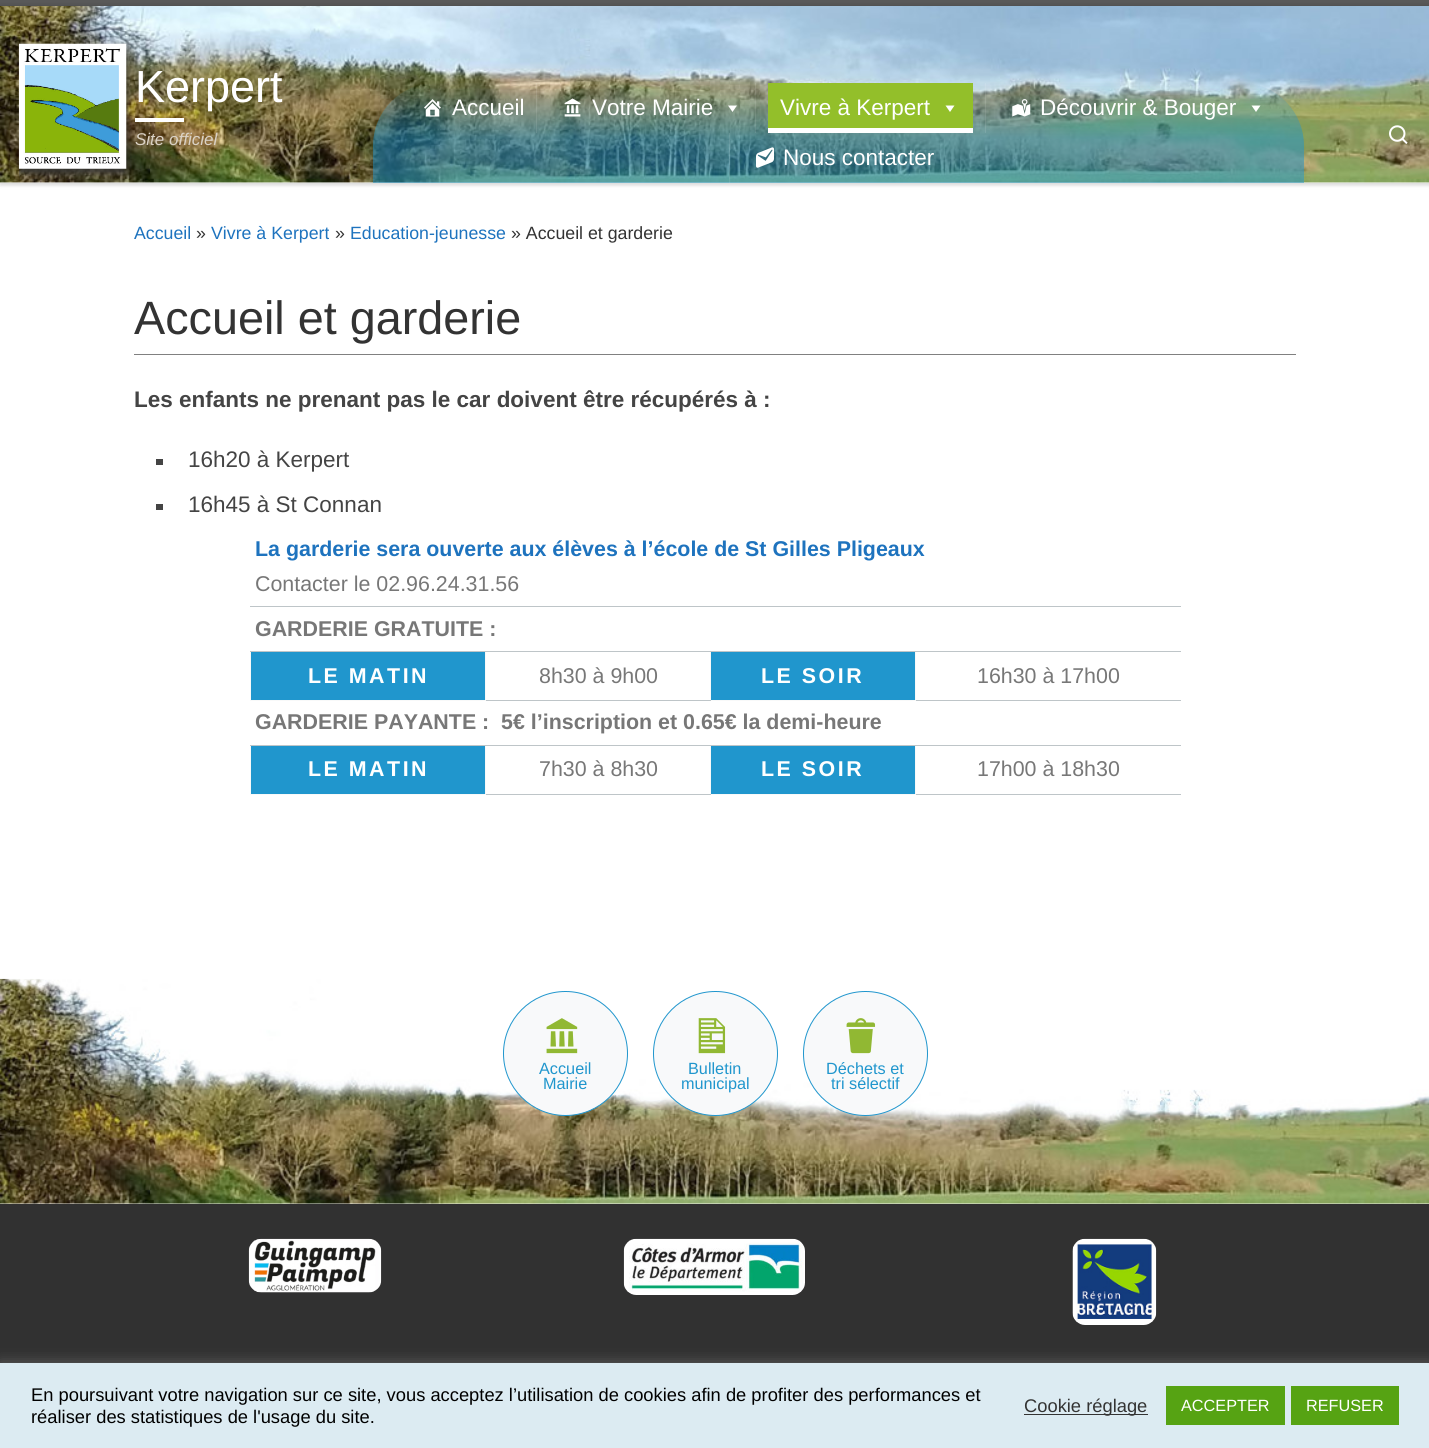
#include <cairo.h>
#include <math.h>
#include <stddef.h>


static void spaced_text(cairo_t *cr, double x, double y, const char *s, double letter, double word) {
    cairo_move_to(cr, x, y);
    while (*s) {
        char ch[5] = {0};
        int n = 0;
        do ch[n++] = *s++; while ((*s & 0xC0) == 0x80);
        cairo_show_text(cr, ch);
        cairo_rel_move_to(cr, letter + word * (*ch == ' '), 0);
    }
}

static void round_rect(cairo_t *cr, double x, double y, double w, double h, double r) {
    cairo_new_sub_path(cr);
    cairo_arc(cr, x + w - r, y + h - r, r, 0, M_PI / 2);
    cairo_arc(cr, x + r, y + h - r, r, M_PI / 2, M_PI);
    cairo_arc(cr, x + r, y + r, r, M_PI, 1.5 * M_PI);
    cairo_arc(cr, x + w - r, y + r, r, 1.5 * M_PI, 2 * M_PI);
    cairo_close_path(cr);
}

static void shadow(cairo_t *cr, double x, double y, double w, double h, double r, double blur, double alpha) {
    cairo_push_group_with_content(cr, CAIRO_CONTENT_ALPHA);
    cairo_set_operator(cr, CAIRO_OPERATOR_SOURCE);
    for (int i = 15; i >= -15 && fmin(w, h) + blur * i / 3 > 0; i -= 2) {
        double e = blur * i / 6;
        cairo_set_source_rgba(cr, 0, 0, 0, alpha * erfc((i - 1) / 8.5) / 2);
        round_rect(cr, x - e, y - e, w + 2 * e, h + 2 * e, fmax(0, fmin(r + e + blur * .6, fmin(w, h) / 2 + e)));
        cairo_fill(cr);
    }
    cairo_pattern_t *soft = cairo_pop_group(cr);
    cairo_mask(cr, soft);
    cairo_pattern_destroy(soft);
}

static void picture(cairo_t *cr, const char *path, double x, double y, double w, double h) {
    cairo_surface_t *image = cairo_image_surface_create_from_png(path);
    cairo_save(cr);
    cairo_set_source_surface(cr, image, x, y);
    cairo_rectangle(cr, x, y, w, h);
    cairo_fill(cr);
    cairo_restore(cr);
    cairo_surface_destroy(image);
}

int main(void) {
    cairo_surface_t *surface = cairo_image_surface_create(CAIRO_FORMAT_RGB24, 1429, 1448);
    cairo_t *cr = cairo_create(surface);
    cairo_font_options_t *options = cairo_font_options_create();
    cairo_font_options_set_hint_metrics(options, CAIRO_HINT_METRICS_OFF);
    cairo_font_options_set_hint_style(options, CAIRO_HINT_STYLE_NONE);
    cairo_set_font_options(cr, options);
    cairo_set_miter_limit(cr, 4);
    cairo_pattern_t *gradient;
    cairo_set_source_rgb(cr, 1, 1, 1);
    cairo_paint(cr);
    cairo_set_source_rgb(cr, 0.4, 0.4, 0.4);
    shadow(cr, 0, 3, 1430, 183, 0, 1, 0.08);
    picture(cr, "img1.png", 0, 6, 1429, 177);
    cairo_set_source_rgb(cr, 0.353, 0.353, 0.353);
    cairo_rectangle(cr, 0, 0, 1429, 6);
    cairo_fill(cr);
    cairo_set_source_rgba(cr, 1, 1, 1, 0.15);
    cairo_rectangle(cr, 0, 182, 1429, 1);
    cairo_fill(cr);
    cairo_save(cr);
    cairo_set_fill_rule(cr, CAIRO_FILL_RULE_EVEN_ODD);
    cairo_new_path(cr);
    cairo_move_to(cr, 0, 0);
    cairo_line_to(cr, 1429, 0);
    cairo_line_to(cr, 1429, 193);
    cairo_line_to(cr, 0, 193);
    cairo_close_path(cr);
    cairo_move_to(cr, 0, 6);
    cairo_line_to(cr, 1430, 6);
    cairo_line_to(cr, 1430, 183);
    cairo_line_to(cr, 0, 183);
    cairo_close_path(cr);
    cairo_clip(cr);
    cairo_set_source_rgb(cr, 0, 0, 0);
    shadow(cr, 0, 6, 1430, 177, 0, 3, 0.2);
    cairo_restore(cr);
    cairo_save(cr);
    cairo_rectangle(cr, 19, 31, 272, 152);
    cairo_clip(cr);
    cairo_set_source_rgb(cr, 0.212, 0.212, 0.204);
    shadow(cr, 19, 49, 107, 125, 0, 4, 1);
    cairo_restore(cr);
    picture(cr, "img2.png", 18, 43, 109, 126);
    cairo_select_font_face(cr, "Liberation Sans", CAIRO_FONT_SLANT_NORMAL, CAIRO_FONT_WEIGHT_NORMAL);
    cairo_set_font_size(cr, 45);
    cairo_set_source_rgb(cr, 1, 1, 1);
    cairo_move_to(cr, 135, 102);
    cairo_show_text(cr, "Kerpert");
    cairo_rectangle(cr, 135, 118, 49, 4);
    cairo_fill(cr);
    cairo_select_font_face(cr, "Liberation Sans", CAIRO_FONT_SLANT_ITALIC, CAIRO_FONT_WEIGHT_NORMAL);
    cairo_set_font_size(cr, 17);
    cairo_set_source_rgb(cr, 0.855, 0.824, 0.776);
    cairo_move_to(cr, 135, 145);
    cairo_show_text(cr, "Site officiel");
    gradient = cairo_pattern_create_linear(838, 82, 838, 183);
    cairo_pattern_add_color_stop_rgba(gradient, 0, 0.125, 0.588, 0.804, 0);
    cairo_pattern_add_color_stop_rgba(gradient, 0.55, 0.125, 0.588, 0.804, 0.51);
    cairo_set_source(cr, gradient);
    cairo_pattern_destroy(gradient);
    cairo_new_path(cr);
    cairo_move_to(cr, 436, 83);
    cairo_line_to(cr, 1241, 83);
    cairo_curve_to(cr, 1276, 83, 1304, 111, 1304, 146);
    cairo_line_to(cr, 1304, 183);
    cairo_line_to(cr, 373, 183);
    cairo_line_to(cr, 373, 146);
    cairo_curve_to(cr, 373, 111, 401, 83, 436, 83);
    cairo_close_path(cr);
    cairo_fill(cr);
    picture(cr, "img3.png", 424, 99, 17, 18);
    cairo_select_font_face(cr, "Liberation Sans", CAIRO_FONT_SLANT_NORMAL, CAIRO_FONT_WEIGHT_NORMAL);
    cairo_set_font_size(cr, 22.5);
    cairo_set_source_rgb(cr, 1, 1, 1);
    cairo_move_to(cr, 452, 115);
    cairo_show_text(cr, "Accueil");
    cairo_set_source_rgba(cr, 1, 1, 1, 0.1);
    cairo_rectangle(cr, 536, 83, 1, 50);
    cairo_fill(cr);
    picture(cr, "img4.png", 564, 98, 17, 19);
    cairo_set_source_rgb(cr, 1, 1, 1);
    cairo_move_to(cr, 592, 115);
    cairo_show_text(cr, "Votre Mairie");
    cairo_new_path(cr);
    cairo_move_to(cr, 737, 105.5);
    cairo_line_to(cr, 732.5, 112);
    cairo_line_to(cr, 728, 105.5);
    cairo_close_path(cr);
    cairo_fill(cr);
    cairo_set_source_rgba(cr, 1, 1, 1, 0.1);
    cairo_rectangle(cr, 755, 83, 1, 50);
    cairo_fill(cr);
    cairo_set_source_rgb(cr, 0.576, 0.749, 0.165);
    cairo_rectangle(cr, 768, 83, 205, 45);
    cairo_fill(cr);
    cairo_set_source_rgb(cr, 1, 1, 1);
    cairo_rectangle(cr, 768, 128, 205, 5);
    cairo_fill(cr);
    cairo_move_to(cr, 780, 115);
    cairo_show_text(cr, "Vivre à Kerpert");
    cairo_new_path(cr);
    cairo_move_to(cr, 954.5, 105.5);
    cairo_line_to(cr, 950, 112);
    cairo_line_to(cr, 945.5, 105.5);
    cairo_close_path(cr);
    cairo_fill(cr);
    cairo_set_source_rgba(cr, 1, 1, 1, 0.1);
    cairo_rectangle(cr, 985, 83, 1, 50);
    cairo_fill(cr);
    picture(cr, "img5.png", 1012, 99, 19, 18);
    cairo_set_source_rgb(cr, 1, 1, 1);
    cairo_move_to(cr, 1040, 115);
    cairo_show_text(cr, "Découvrir & Bouger");
    cairo_new_path(cr);
    cairo_move_to(cr, 1260.5, 105.5);
    cairo_line_to(cr, 1256, 112);
    cairo_line_to(cr, 1251.5, 105.5);
    cairo_close_path(cr);
    cairo_fill(cr);
    cairo_set_source_rgba(cr, 1, 1, 1, 0.1);
    cairo_rectangle(cr, 729, 133, 1, 50);
    cairo_fill(cr);
    picture(cr, "img6.png", 756, 147, 18, 21);
    cairo_set_source_rgb(cr, 1, 1, 1);
    cairo_move_to(cr, 783, 165);
    cairo_show_text(cr, "Nous contacter");
    picture(cr, "img7.png", 1389, 125, 19, 19);
    cairo_set_font_size(cr, 17.75);
    cairo_set_source_rgb(cr, 0.118, 0.451, 0.745);
    cairo_move_to(cr, 134, 239);
    cairo_show_text(cr, "Accueil");
    cairo_set_source_rgb(cr, 0.2, 0.2, 0.2);
    cairo_move_to(cr, 196, 239);
    cairo_show_text(cr, "»");
    cairo_set_source_rgb(cr, 0.118, 0.451, 0.745);
    cairo_move_to(cr, 211, 239);
    cairo_show_text(cr, "Vivre à Kerpert");
    cairo_set_source_rgb(cr, 0.2, 0.2, 0.2);
    cairo_move_to(cr, 335, 239);
    cairo_show_text(cr, "»");
    cairo_set_source_rgb(cr, 0.118, 0.451, 0.745);
    cairo_move_to(cr, 350, 239);
    cairo_show_text(cr, "Education-jeunesse");
    cairo_set_source_rgb(cr, 0.2, 0.2, 0.2);
    cairo_move_to(cr, 511, 239);
    cairo_show_text(cr, "» Accueil et garderie");
    cairo_set_source_rgb(cr, 0.502, 0.502, 0.502);
    cairo_rectangle(cr, 134, 354, 1162, 1);
    cairo_fill(cr);
    cairo_set_font_size(cr, 46.75);
    cairo_set_source_rgb(cr, 0.2, 0.2, 0.2);
    cairo_move_to(cr, 134, 334);
    cairo_show_text(cr, "Accueil et garderie");
    cairo_select_font_face(cr, "Liberation Sans", CAIRO_FONT_SLANT_NORMAL, CAIRO_FONT_WEIGHT_BOLD);
    cairo_set_font_size(cr, 22.5);
    cairo_set_source_rgb(cr, 0.267, 0.267, 0.267);
    cairo_move_to(cr, 134, 407);
    cairo_show_text(cr, "Les enfants ne prenant pas le car doivent être récupérés à :");
    cairo_rectangle(cr, 156, 459, 7, 6);
    cairo_fill(cr);
    cairo_select_font_face(cr, "Liberation Sans", CAIRO_FONT_SLANT_NORMAL, CAIRO_FONT_WEIGHT_NORMAL);
    cairo_move_to(cr, 188, 467);
    cairo_show_text(cr, "16h20 à Kerpert");
    cairo_rectangle(cr, 156, 504, 7, 6);
    cairo_fill(cr);
    cairo_move_to(cr, 188, 512);
    cairo_show_text(cr, "16h45 à St Connan");
    cairo_set_source_rgb(cr, 0.745, 0.773, 0.784);
    cairo_rectangle(cr, 250, 606, 931, 1);
    cairo_fill(cr);
    cairo_select_font_face(cr, "Liberation Sans", CAIRO_FONT_SLANT_NORMAL, CAIRO_FONT_WEIGHT_BOLD);
    cairo_set_font_size(cr, 21.4);
    cairo_set_source_rgb(cr, 0.118, 0.451, 0.745);
    cairo_move_to(cr, 255, 556);
    cairo_show_text(cr, "La garderie sera ouverte aux élèves à l’école de St Gilles Pligeaux");
    cairo_select_font_face(cr, "Liberation Sans", CAIRO_FONT_SLANT_NORMAL, CAIRO_FONT_WEIGHT_NORMAL);
    cairo_set_source_rgb(cr, 0.467, 0.467, 0.467);
    cairo_move_to(cr, 255, 591);
    cairo_show_text(cr, "Contacter le 02.96.24.31.56");
    cairo_set_source_rgb(cr, 0.745, 0.773, 0.784);
    cairo_rectangle(cr, 915, 700, 266, 1);
    cairo_fill(cr);
    cairo_set_source_rgb(cr, 0.969, 0.973, 0.976);
    cairo_rectangle(cr, 915, 651, 1, 50);
    cairo_fill(cr);
    cairo_rectangle(cr, 710, 700, 206, 1);
    cairo_fill(cr);
    cairo_rectangle(cr, 710, 651, 1, 50);
    cairo_fill(cr);
    cairo_set_source_rgb(cr, 0.745, 0.773, 0.784);
    cairo_rectangle(cr, 485, 700, 226, 1);
    cairo_fill(cr);
    cairo_set_source_rgb(cr, 0.969, 0.973, 0.976);
    cairo_rectangle(cr, 485, 651, 1, 50);
    cairo_fill(cr);
    cairo_rectangle(cr, 250, 700, 236, 1);
    cairo_fill(cr);
    cairo_rectangle(cr, 250, 651, 1, 50);
    cairo_fill(cr);
    cairo_set_source_rgb(cr, 0.745, 0.773, 0.784);
    cairo_rectangle(cr, 250, 651, 931, 1);
    cairo_fill(cr);
    cairo_select_font_face(cr, "Liberation Sans", CAIRO_FONT_SLANT_NORMAL, CAIRO_FONT_WEIGHT_BOLD);
    cairo_set_source_rgb(cr, 0.467, 0.467, 0.467);
    cairo_move_to(cr, 255, 636);
    cairo_show_text(cr, "GARDERIE GRATUITE :");
    cairo_set_source_rgb(cr, 0.125, 0.588, 0.804);
    cairo_rectangle(cr, 251, 652, 234, 48);
    cairo_fill(cr);
    cairo_set_source_rgb(cr, 1, 1, 1);
    spaced_text(cr, 308, 683, "LE MATIN", 2.5, 0);
    cairo_select_font_face(cr, "Liberation Sans", CAIRO_FONT_SLANT_NORMAL, CAIRO_FONT_WEIGHT_NORMAL);
    cairo_set_source_rgb(cr, 0.467, 0.467, 0.467);
    cairo_move_to(cr, 539, 683);
    cairo_show_text(cr, "8h30 à 9h00");
    cairo_set_source_rgb(cr, 0.125, 0.588, 0.804);
    cairo_rectangle(cr, 711, 652, 204, 48);
    cairo_fill(cr);
    cairo_select_font_face(cr, "Liberation Sans", CAIRO_FONT_SLANT_NORMAL, CAIRO_FONT_WEIGHT_BOLD);
    cairo_set_source_rgb(cr, 1, 1, 1);
    spaced_text(cr, 761, 683, "LE SOIR", 2.5, 0);
    cairo_select_font_face(cr, "Liberation Sans", CAIRO_FONT_SLANT_NORMAL, CAIRO_FONT_WEIGHT_NORMAL);
    cairo_set_source_rgb(cr, 0.467, 0.467, 0.467);
    cairo_move_to(cr, 977, 683);
    cairo_show_text(cr, "16h30 à 17h00");
    cairo_set_source_rgb(cr, 0.745, 0.773, 0.784);
    cairo_rectangle(cr, 915, 794, 266, 1);
    cairo_fill(cr);
    cairo_set_source_rgb(cr, 0.969, 0.973, 0.976);
    cairo_rectangle(cr, 915, 745, 1, 50);
    cairo_fill(cr);
    cairo_rectangle(cr, 710, 794, 206, 1);
    cairo_fill(cr);
    cairo_rectangle(cr, 710, 745, 1, 50);
    cairo_fill(cr);
    cairo_set_source_rgb(cr, 0.745, 0.773, 0.784);
    cairo_rectangle(cr, 485, 794, 226, 1);
    cairo_fill(cr);
    cairo_set_source_rgb(cr, 0.969, 0.973, 0.976);
    cairo_rectangle(cr, 485, 745, 1, 50);
    cairo_fill(cr);
    cairo_rectangle(cr, 250, 794, 236, 1);
    cairo_fill(cr);
    cairo_rectangle(cr, 250, 745, 1, 50);
    cairo_fill(cr);
    cairo_set_source_rgb(cr, 0.745, 0.773, 0.784);
    cairo_rectangle(cr, 250, 745, 931, 1);
    cairo_fill(cr);
    cairo_select_font_face(cr, "Liberation Sans", CAIRO_FONT_SLANT_NORMAL, CAIRO_FONT_WEIGHT_BOLD);
    cairo_set_source_rgb(cr, 0.467, 0.467, 0.467);
    cairo_move_to(cr, 255, 729);
    cairo_show_text(cr, "GARDERIE PAYANTE :  5€ l’inscription et 0.65€ la demi-heure");
    cairo_set_source_rgb(cr, 0.125, 0.588, 0.804);
    cairo_rectangle(cr, 251, 746, 234, 48);
    cairo_fill(cr);
    cairo_set_source_rgb(cr, 1, 1, 1);
    spaced_text(cr, 308, 776, "LE MATIN", 2.5, 0);
    cairo_select_font_face(cr, "Liberation Sans", CAIRO_FONT_SLANT_NORMAL, CAIRO_FONT_WEIGHT_NORMAL);
    cairo_set_source_rgb(cr, 0.467, 0.467, 0.467);
    cairo_move_to(cr, 539, 776);
    cairo_show_text(cr, "7h30 à 8h30");
    cairo_set_source_rgb(cr, 0.125, 0.588, 0.804);
    cairo_rectangle(cr, 711, 746, 204, 48);
    cairo_fill(cr);
    cairo_select_font_face(cr, "Liberation Sans", CAIRO_FONT_SLANT_NORMAL, CAIRO_FONT_WEIGHT_BOLD);
    cairo_set_source_rgb(cr, 1, 1, 1);
    spaced_text(cr, 761, 776, "LE SOIR", 2.5, 0);
    cairo_select_font_face(cr, "Liberation Sans", CAIRO_FONT_SLANT_NORMAL, CAIRO_FONT_WEIGHT_NORMAL);
    cairo_set_source_rgb(cr, 0.467, 0.467, 0.467);
    cairo_move_to(cr, 977, 776);
    cairo_show_text(cr, "17h00 à 18h30");
    picture(cr, "img8.png", 0, 978, 1429, 226);
    cairo_set_source_rgb(cr, 0.969, 0.973, 0.98);
    cairo_arc(cr, 565.5, 1053.5, 62, 0, 2 * M_PI);
    cairo_fill_preserve(cr);
    cairo_set_source_rgb(cr, 0.125, 0.588, 0.804);
    cairo_set_line_width(cr, 1);
    cairo_stroke(cr);
    picture(cr, "img9.png", 546, 1018, 32, 36);
    cairo_set_font_size(cr, 16.25);
    cairo_move_to(cr, 539, 1074);
    cairo_show_text(cr, "Accueil");
    cairo_move_to(cr, 543, 1089);
    cairo_show_text(cr, "Mairie");
    cairo_set_source_rgb(cr, 0.969, 0.973, 0.98);
    cairo_new_path(cr);
    cairo_arc(cr, 715.5, 1053.5, 62, 0, 2 * M_PI);
    cairo_fill_preserve(cr);
    cairo_set_source_rgb(cr, 0.125, 0.588, 0.804);
    cairo_stroke(cr);
    picture(cr, "img10.png", 698, 1018, 28, 36);
    cairo_move_to(cr, 688, 1074);
    cairo_show_text(cr, "Bulletin");
    cairo_move_to(cr, 681, 1089);
    cairo_show_text(cr, "municipal");
    cairo_set_source_rgb(cr, 0.969, 0.973, 0.98);
    cairo_new_path(cr);
    cairo_arc(cr, 865.5, 1053.5, 62, 0, 2 * M_PI);
    cairo_fill_preserve(cr);
    cairo_set_source_rgb(cr, 0.125, 0.588, 0.804);
    cairo_stroke(cr);
    picture(cr, "img11.png", 846, 1018, 30, 36);
    cairo_move_to(cr, 826, 1074);
    cairo_show_text(cr, "Déchets et");
    cairo_move_to(cr, 831, 1089);
    cairo_show_text(cr, "tri sélectif");
    cairo_set_source_rgb(cr, 0.192, 0.192, 0.192);
    cairo_rectangle(cr, 0, 1204, 1429, 159);
    cairo_fill(cr);
    picture(cr, "img12.png", 248, 1238, 134, 55);
    picture(cr, "img13.png", 623, 1238, 182, 57);
    picture(cr, "img14.png", 1072, 1238, 85, 87);
    cairo_set_source_rgb(cr, 0.675, 0.671, 0.671);
    shadow(cr, 0, 1361, 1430, 87, 0, 6, 0.3);
    cairo_set_source_rgb(cr, 0.863, 0.918, 0.949);
    cairo_rectangle(cr, 0, 1363, 1429, 85);
    cairo_fill(cr);
    cairo_set_font_size(cr, 18.33);
    cairo_set_source_rgb(cr, 0, 0, 0);
    cairo_move_to(cr, 31, 1401);
    cairo_show_text(cr, "En poursuivant votre navigation sur ce site, vous acceptez l’utilisation de cookies afin de profiter des performances et");
    cairo_move_to(cr, 31, 1423);
    cairo_show_text(cr, "réaliser des statistiques de l'usage du site.");
    cairo_set_source_rgb(cr, 0.2, 0.2, 0.2);
    cairo_rectangle(cr, 1024, 1414, 124, 1);
    cairo_fill(cr);
    cairo_move_to(cr, 1024, 1412);
    cairo_show_text(cr, "Cookie réglage");
    cairo_set_source_rgb(cr, 0.337, 0.639, 0.075);
    cairo_rectangle(cr, 1166, 1386, 119, 39);
    cairo_fill(cr);
    cairo_set_font_size(cr, 16.25);
    cairo_set_source_rgb(cr, 1, 1, 1);
    cairo_move_to(cr, 1181, 1411);
    cairo_show_text(cr, "ACCEPTER");
    cairo_set_source_rgb(cr, 0.337, 0.639, 0.075);
    cairo_rectangle(cr, 1291, 1386, 108, 39);
    cairo_fill(cr);
    cairo_set_source_rgb(cr, 1, 1, 1);
    cairo_move_to(cr, 1306, 1411);
    cairo_show_text(cr, "REFUSER");
    cairo_surface_write_to_png(surface, "page.png");
    cairo_font_options_destroy(options);
    cairo_destroy(cr);
    cairo_surface_destroy(surface);
    return 0;
}
